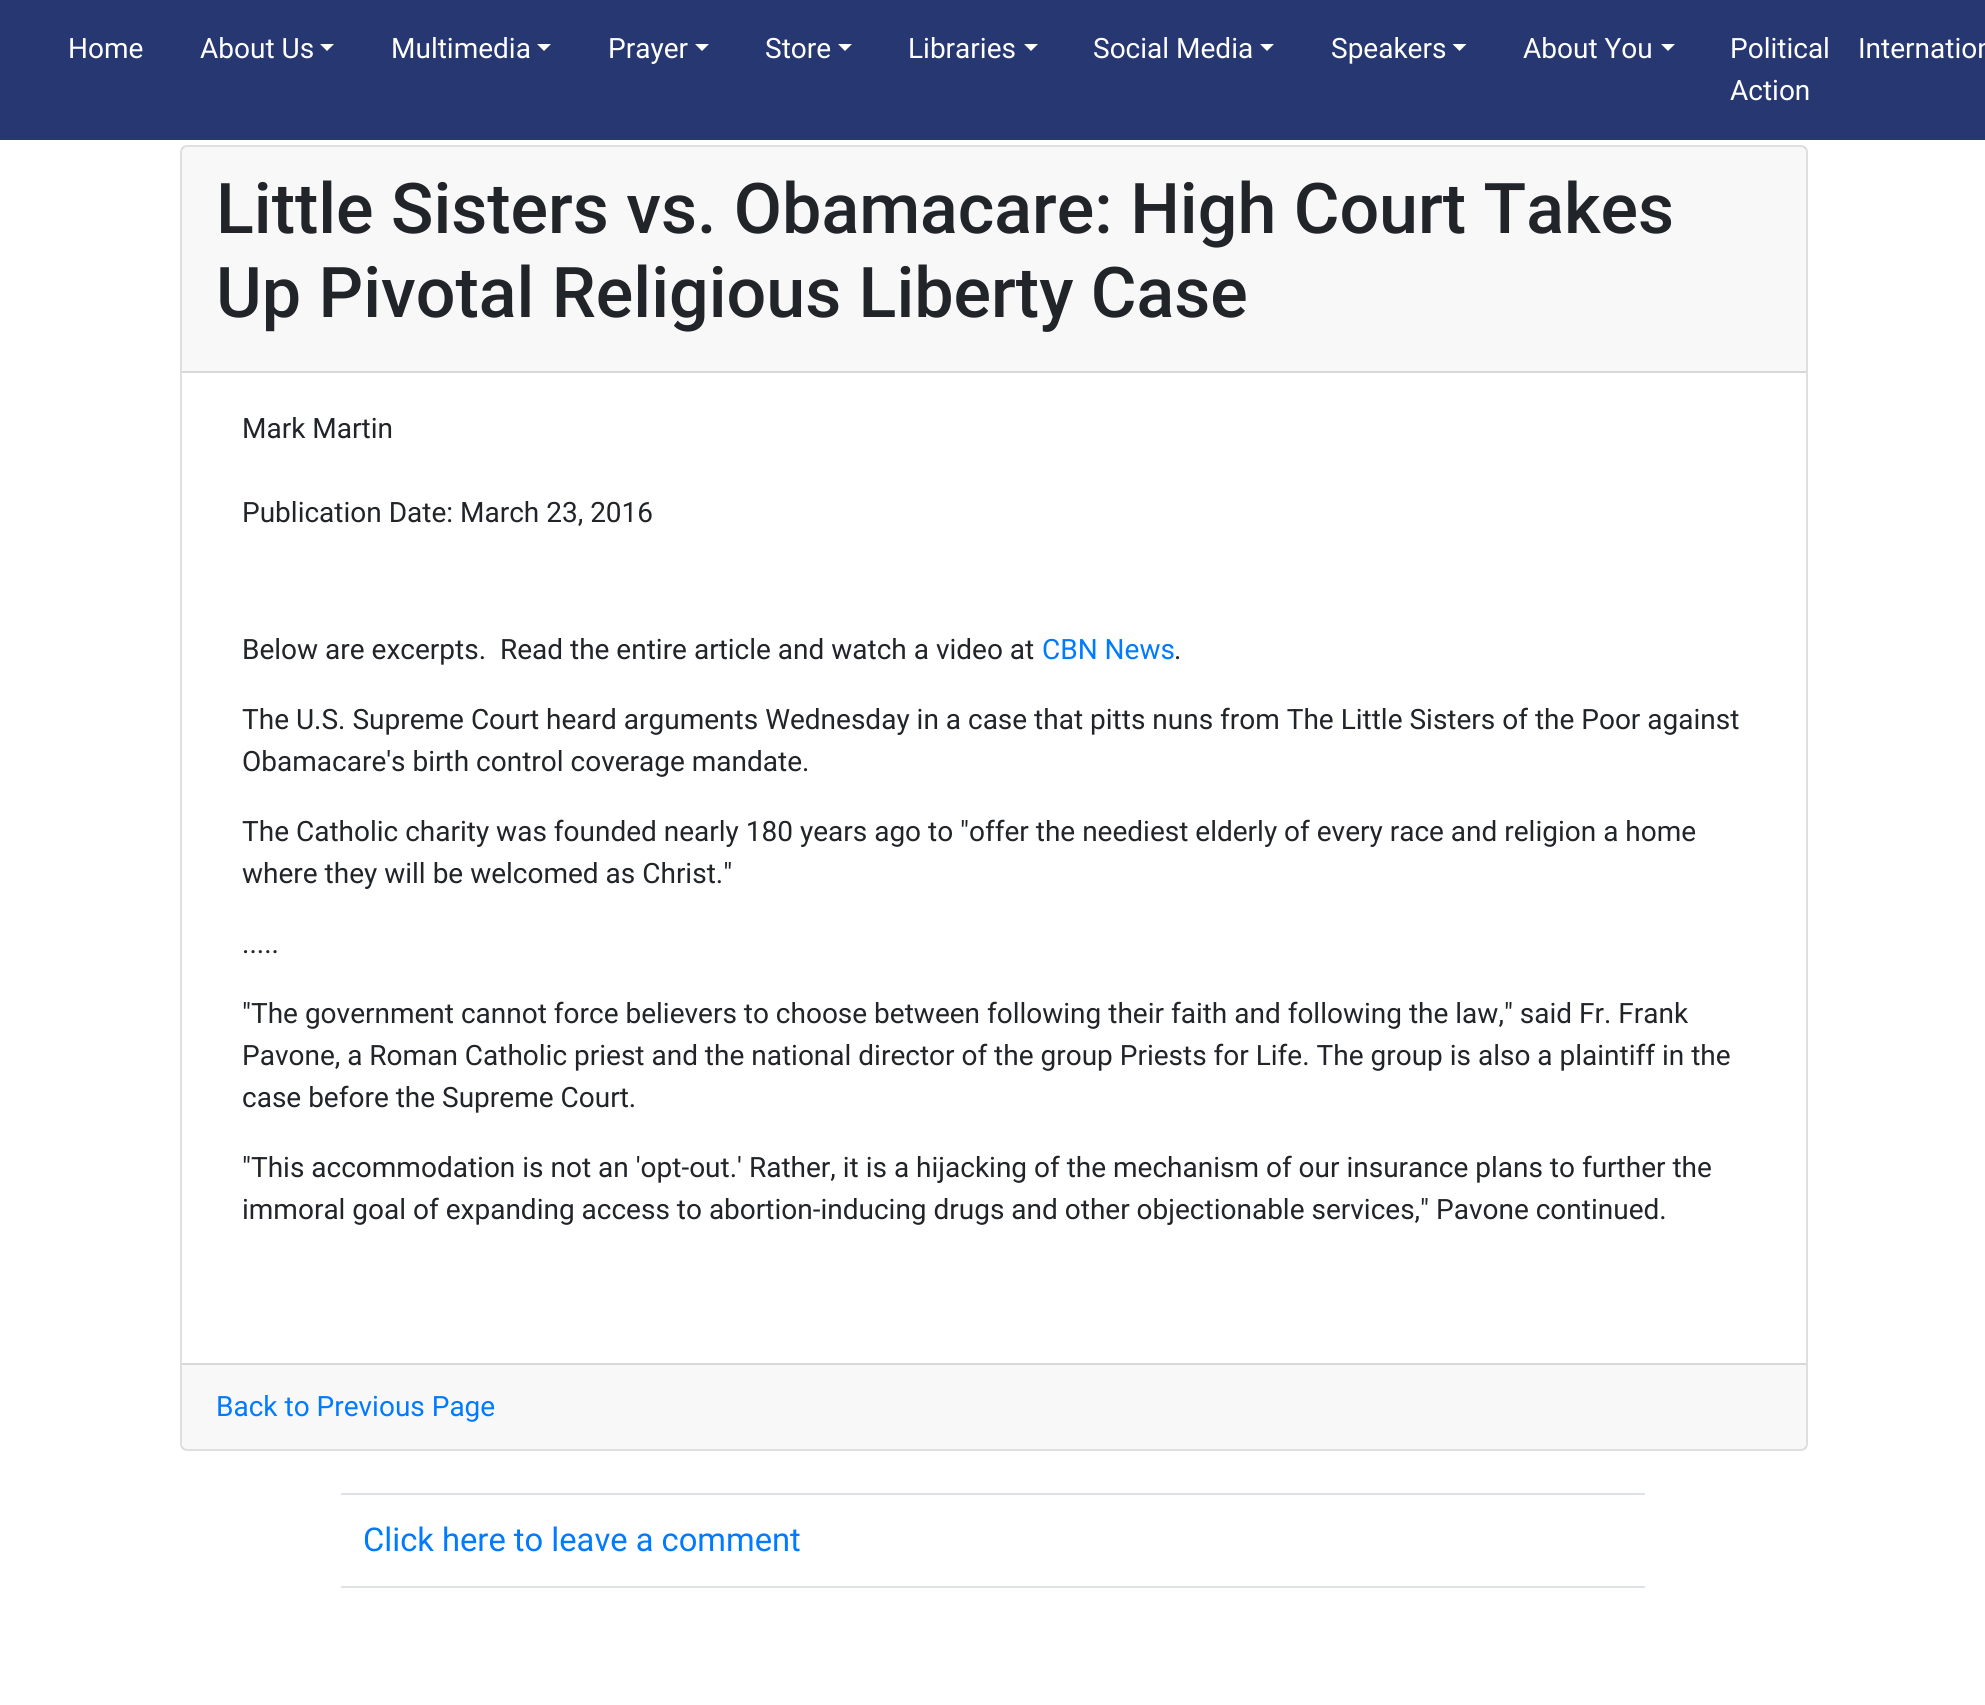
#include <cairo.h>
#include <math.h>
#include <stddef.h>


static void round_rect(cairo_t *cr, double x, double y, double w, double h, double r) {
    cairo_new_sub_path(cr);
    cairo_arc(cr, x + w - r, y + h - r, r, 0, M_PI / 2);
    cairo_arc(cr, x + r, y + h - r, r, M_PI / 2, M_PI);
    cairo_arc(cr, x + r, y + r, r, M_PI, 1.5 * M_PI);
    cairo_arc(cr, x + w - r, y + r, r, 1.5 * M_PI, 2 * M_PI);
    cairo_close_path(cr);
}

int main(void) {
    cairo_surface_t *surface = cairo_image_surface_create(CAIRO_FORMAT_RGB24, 1985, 1705);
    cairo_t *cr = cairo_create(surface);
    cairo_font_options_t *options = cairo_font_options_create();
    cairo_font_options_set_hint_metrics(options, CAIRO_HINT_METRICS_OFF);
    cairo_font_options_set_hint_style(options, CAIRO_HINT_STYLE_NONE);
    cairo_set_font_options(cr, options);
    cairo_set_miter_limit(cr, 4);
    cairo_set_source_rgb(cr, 1, 1, 1);
    cairo_paint(cr);
    cairo_set_source_rgb(cr, 0.153, 0.216, 0.447);
    cairo_rectangle(cr, 0, 0, 1985, 140);
    cairo_fill(cr);
    cairo_select_font_face(cr, "Roboto", CAIRO_FONT_SLANT_NORMAL, CAIRO_FONT_WEIGHT_NORMAL);
    cairo_set_font_size(cr, 28);
    cairo_set_source_rgb(cr, 1, 1, 1);
    cairo_move_to(cr, 68, 58);
    cairo_show_text(cr, "Home");
    cairo_move_to(cr, 200, 58);
    cairo_show_text(cr, "About Us");
    cairo_new_path(cr);
    cairo_move_to(cr, 320, 44);
    cairo_line_to(cr, 334, 44);
    cairo_line_to(cr, 327, 51);
    cairo_close_path(cr);
    cairo_fill(cr);
    cairo_move_to(cr, 391, 58);
    cairo_show_text(cr, "Multimedia");
    cairo_new_path(cr);
    cairo_move_to(cr, 537, 44);
    cairo_line_to(cr, 551, 44);
    cairo_line_to(cr, 544, 51);
    cairo_close_path(cr);
    cairo_fill(cr);
    cairo_move_to(cr, 608, 58);
    cairo_show_text(cr, "Prayer");
    cairo_new_path(cr);
    cairo_move_to(cr, 695, 44);
    cairo_line_to(cr, 709, 44);
    cairo_line_to(cr, 702, 51);
    cairo_close_path(cr);
    cairo_fill(cr);
    cairo_move_to(cr, 765, 58);
    cairo_show_text(cr, "Store");
    cairo_new_path(cr);
    cairo_move_to(cr, 838, 44);
    cairo_line_to(cr, 852, 44);
    cairo_line_to(cr, 845, 51);
    cairo_close_path(cr);
    cairo_fill(cr);
    cairo_move_to(cr, 908, 58);
    cairo_show_text(cr, "Libraries");
    cairo_new_path(cr);
    cairo_move_to(cr, 1024, 44);
    cairo_line_to(cr, 1038, 44);
    cairo_line_to(cr, 1031, 51);
    cairo_close_path(cr);
    cairo_fill(cr);
    cairo_move_to(cr, 1093, 58);
    cairo_show_text(cr, "Social Media");
    cairo_new_path(cr);
    cairo_move_to(cr, 1260, 44);
    cairo_line_to(cr, 1274, 44);
    cairo_line_to(cr, 1267, 51);
    cairo_close_path(cr);
    cairo_fill(cr);
    cairo_move_to(cr, 1331, 58);
    cairo_show_text(cr, "Speakers");
    cairo_new_path(cr);
    cairo_move_to(cr, 1452.5, 44);
    cairo_line_to(cr, 1466.5, 44);
    cairo_line_to(cr, 1459.5, 51);
    cairo_close_path(cr);
    cairo_fill(cr);
    cairo_move_to(cr, 1523, 58);
    cairo_show_text(cr, "About You");
    cairo_new_path(cr);
    cairo_move_to(cr, 1661, 44);
    cairo_line_to(cr, 1675, 44);
    cairo_line_to(cr, 1668, 51);
    cairo_close_path(cr);
    cairo_fill(cr);
    cairo_move_to(cr, 1730, 58);
    cairo_show_text(cr, "Political");
    cairo_move_to(cr, 1730, 100);
    cairo_show_text(cr, "Action");
    cairo_move_to(cr, 1858, 58);
    cairo_show_text(cr, "Internation");
    round_rect(cr, 181, 146, 1626, 1304, 6);
    cairo_set_source_rgb(cr, 0.875, 0.875, 0.875);
    cairo_stroke(cr);
    cairo_set_source_rgba(cr, 0, 0, 0, 0.03);
    cairo_rectangle(cr, 182, 147, 1624, 224);
    cairo_fill(cr);
    cairo_set_source_rgb(cr, 0.847, 0.847, 0.847);
    cairo_rectangle(cr, 182, 371, 1624, 2);
    cairo_fill(cr);
    cairo_select_font_face(cr, "Roboto Medium", CAIRO_FONT_SLANT_NORMAL, CAIRO_FONT_WEIGHT_NORMAL);
    cairo_set_font_size(cr, 70);
    cairo_set_source_rgb(cr, 0.129, 0.145, 0.161);
    cairo_move_to(cr, 216, 233);
    cairo_show_text(cr, "Little Sisters vs. Obamacare: High Court Takes");
    cairo_move_to(cr, 216, 317);
    cairo_show_text(cr, "Up Pivotal Religious Liberty Case");
    cairo_select_font_face(cr, "Roboto", CAIRO_FONT_SLANT_NORMAL, CAIRO_FONT_WEIGHT_NORMAL);
    cairo_set_font_size(cr, 28);
    cairo_move_to(cr, 242, 438);
    cairo_show_text(cr, "Mark Martin");
    cairo_move_to(cr, 242, 522);
    cairo_show_text(cr, "Publication Date: March 23, 2016");
    cairo_move_to(cr, 242, 659);
    cairo_show_text(cr, "Below are excerpts.  Read the entire article and watch a video at");
    cairo_set_source_rgb(cr, 0, 0.482, 1);
    cairo_move_to(cr, 1042, 659);
    cairo_show_text(cr, "CBN News");
    cairo_set_source_rgb(cr, 0.129, 0.145, 0.161);
    cairo_move_to(cr, 1174, 659);
    cairo_show_text(cr, ".");
    cairo_move_to(cr, 242, 729);
    cairo_show_text(cr, "The U.S. Supreme Court heard arguments Wednesday in a case that pitts nuns from The Little Sisters of the Poor against");
    cairo_move_to(cr, 242, 771);
    cairo_show_text(cr, "Obamacare's birth control coverage mandate.");
    cairo_move_to(cr, 242, 841);
    cairo_show_text(cr, "The Catholic charity was founded nearly 180 years ago to \"offer the neediest elderly of every race and religion a home");
    cairo_move_to(cr, 242, 883);
    cairo_show_text(cr, "where they will be welcomed as Christ.\"");
    cairo_move_to(cr, 242, 953);
    cairo_show_text(cr, ".....");
    cairo_move_to(cr, 242, 1023);
    cairo_show_text(cr, "\"The government cannot force believers to choose between following their faith and following the law,\" said Fr. Frank");
    cairo_move_to(cr, 242, 1065);
    cairo_show_text(cr, "Pavone, a Roman Catholic priest and the national director of the group Priests for Life. The group is also a plaintiff in the");
    cairo_move_to(cr, 242, 1107);
    cairo_show_text(cr, "case before the Supreme Court.");
    cairo_move_to(cr, 242, 1177);
    cairo_show_text(cr, "\"This accommodation is not an 'opt-out.' Rather, it is a hijacking of the mechanism of our insurance plans to further the");
    cairo_move_to(cr, 242, 1219);
    cairo_show_text(cr, "immoral goal of expanding access to abortion-inducing drugs and other objectionable services,\" Pavone continued.");
    cairo_set_source_rgba(cr, 0, 0, 0, 0.03);
    cairo_rectangle(cr, 182, 1365, 1624, 84);
    cairo_fill(cr);
    cairo_set_source_rgb(cr, 0.847, 0.847, 0.847);
    cairo_rectangle(cr, 182, 1363, 1624, 2);
    cairo_fill(cr);
    cairo_set_source_rgb(cr, 0, 0.482, 1);
    cairo_move_to(cr, 216, 1416);
    cairo_show_text(cr, "Back to Previous Page");
    cairo_set_source_rgb(cr, 0.871, 0.886, 0.902);
    cairo_rectangle(cr, 341, 1493, 1304, 2);
    cairo_fill(cr);
    cairo_set_font_size(cr, 32.7);
    cairo_set_source_rgb(cr, 0, 0.482, 1);
    cairo_move_to(cr, 363, 1551);
    cairo_show_text(cr, "Click here to leave a comment");
    cairo_set_source_rgb(cr, 0.871, 0.886, 0.902);
    cairo_rectangle(cr, 341, 1586, 1304, 2);
    cairo_fill(cr);
    cairo_surface_write_to_png(surface, "page.png");
    cairo_font_options_destroy(options);
    cairo_destroy(cr);
    cairo_surface_destroy(surface);
    return 0;
}
